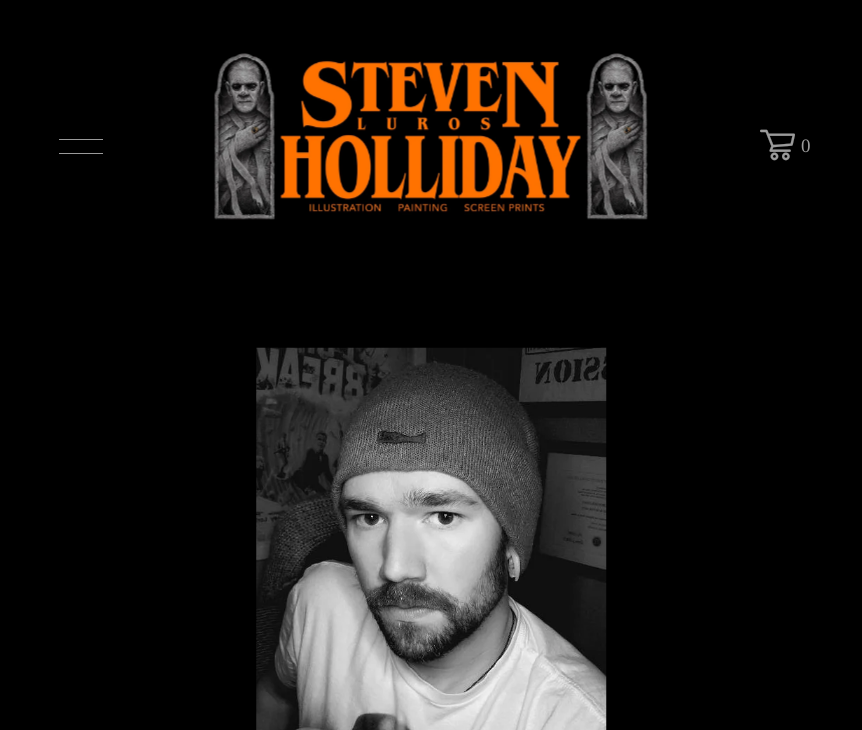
#include <cairo.h>
#include <math.h>
#include <stddef.h>


static void picture(cairo_t *cr, const char *path, double x, double y, double w, double h) {
    cairo_surface_t *image = cairo_image_surface_create_from_png(path);
    cairo_save(cr);
    cairo_set_source_surface(cr, image, x, y);
    cairo_rectangle(cr, x, y, w, h);
    cairo_fill(cr);
    cairo_restore(cr);
    cairo_surface_destroy(image);
}

int main(void) {
    cairo_surface_t *surface = cairo_image_surface_create(CAIRO_FORMAT_RGB24, 862, 730);
    cairo_t *cr = cairo_create(surface);
    cairo_font_options_t *options = cairo_font_options_create();
    cairo_font_options_set_hint_metrics(options, CAIRO_HINT_METRICS_OFF);
    cairo_font_options_set_hint_style(options, CAIRO_HINT_STYLE_NONE);
    cairo_set_font_options(cr, options);
    cairo_set_miter_limit(cr, 4);
    cairo_set_source_rgb(cr, 0, 0, 0);
    cairo_paint(cr);
    cairo_set_source_rgb(cr, 0.604, 0.604, 0.604);
    cairo_rectangle(cr, 59, 139, 44, 1);
    cairo_fill(cr);
    cairo_rectangle(cr, 59, 153, 44, 1);
    cairo_fill(cr);
    picture(cr, "img1.png", 214, 53, 434, 167);
    picture(cr, "img2.png", 760, 129, 35, 32);
    cairo_select_font_face(cr, "Liberation Serif", CAIRO_FONT_SLANT_NORMAL, CAIRO_FONT_WEIGHT_NORMAL);
    cairo_set_font_size(cr, 19);
    cairo_move_to(cr, 801, 152);
    cairo_show_text(cr, "0");
    picture(cr, "img3.png", 256, 347, 351, 383);
    cairo_surface_write_to_png(surface, "page.png");
    cairo_font_options_destroy(options);
    cairo_destroy(cr);
    cairo_surface_destroy(surface);
    return 0;
}
